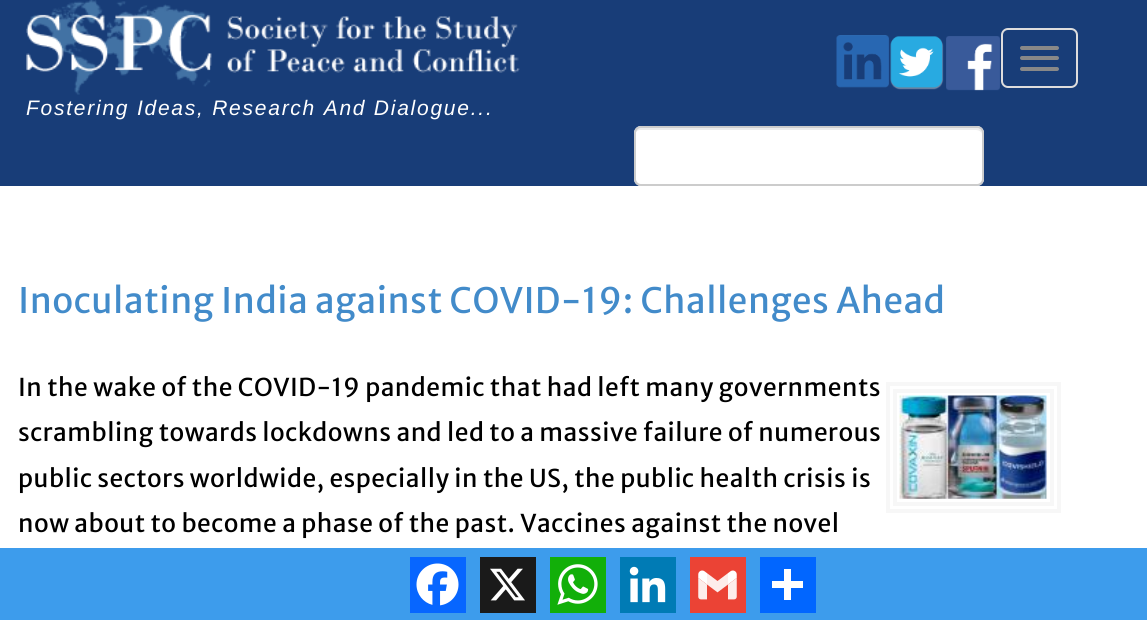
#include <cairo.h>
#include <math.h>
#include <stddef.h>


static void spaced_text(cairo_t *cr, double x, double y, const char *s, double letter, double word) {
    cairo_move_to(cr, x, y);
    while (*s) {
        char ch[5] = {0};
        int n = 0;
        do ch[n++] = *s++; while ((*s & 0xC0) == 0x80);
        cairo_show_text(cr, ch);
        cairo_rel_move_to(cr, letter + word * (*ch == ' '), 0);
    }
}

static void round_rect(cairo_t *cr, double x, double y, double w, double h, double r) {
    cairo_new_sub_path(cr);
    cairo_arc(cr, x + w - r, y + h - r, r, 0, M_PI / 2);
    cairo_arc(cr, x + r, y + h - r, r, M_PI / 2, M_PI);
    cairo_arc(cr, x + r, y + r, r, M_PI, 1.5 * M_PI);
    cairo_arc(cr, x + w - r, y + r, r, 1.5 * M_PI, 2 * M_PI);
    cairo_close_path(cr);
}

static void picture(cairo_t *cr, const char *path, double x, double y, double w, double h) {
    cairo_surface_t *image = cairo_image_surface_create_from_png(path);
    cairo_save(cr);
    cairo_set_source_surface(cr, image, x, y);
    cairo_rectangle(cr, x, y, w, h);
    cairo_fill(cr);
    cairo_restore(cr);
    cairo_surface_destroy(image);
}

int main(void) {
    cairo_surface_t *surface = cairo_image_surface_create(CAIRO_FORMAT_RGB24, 1147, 620);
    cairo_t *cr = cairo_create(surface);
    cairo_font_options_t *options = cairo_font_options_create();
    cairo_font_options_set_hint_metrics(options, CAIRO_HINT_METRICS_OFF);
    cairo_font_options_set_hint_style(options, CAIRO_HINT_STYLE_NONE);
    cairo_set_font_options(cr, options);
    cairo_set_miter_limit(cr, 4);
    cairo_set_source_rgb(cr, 1, 1, 1);
    cairo_paint(cr);
    cairo_set_source_rgb(cr, 0.094, 0.239, 0.471);
    cairo_rectangle(cr, 0, 0, 1147, 186);
    cairo_fill(cr);
    round_rect(cr, 1002, 29, 75, 58, 6);
    cairo_set_source_rgb(cr, 0.867, 0.867, 0.867);
    cairo_stroke(cr);
    cairo_set_source_rgb(cr, 0.533, 0.533, 0.533);
    round_rect(cr, 1020, 46, 39, 4, 2);
    cairo_fill(cr);
    round_rect(cr, 1020, 56, 39, 4, 2);
    cairo_fill(cr);
    round_rect(cr, 1020, 67, 39, 4, 2);
    cairo_fill(cr);
    picture(cr, "img1.png", 836, 35, 53, 53);
    picture(cr, "img2.png", 890, 36, 54, 54);
    picture(cr, "img3.png", 946, 36, 54, 55);
    picture(cr, "img4.png", 26, 0, 494, 95);
    cairo_select_font_face(cr, "Liberation Sans", CAIRO_FONT_SLANT_ITALIC, CAIRO_FONT_WEIGHT_NORMAL);
    cairo_set_font_size(cr, 21);
    cairo_set_source_rgb(cr, 1, 1, 1);
    spaced_text(cr, 26, 115, "Fostering Ideas, Research And Dialogue...", 1.75, 0);
    round_rect(cr, 634, 126, 350, 60, 7);
    cairo_fill(cr);
    cairo_set_source_rgb(cr, 0.925, 0.925, 0.925);
    cairo_new_path(cr);
    cairo_move_to(cr, 640, 130);
    cairo_line_to(cr, 976, 130);
    cairo_curve_to(cr, 979, 130, 982, 132, 982, 135);
    cairo_curve_to(cr, 982, 132, 981, 128, 977, 128);
    cairo_line_to(cr, 640, 128);
    cairo_curve_to(cr, 636, 128, 635, 132, 635, 135);
    cairo_curve_to(cr, 635, 132, 638, 130, 640, 130);
    cairo_close_path(cr);
    cairo_fill(cr);
    round_rect(cr, 635, 127, 348, 58, 6);
    cairo_set_source_rgb(cr, 0.8, 0.8, 0.8);
    cairo_stroke(cr);
    cairo_select_font_face(cr, "Merriweather Sans", CAIRO_FONT_SLANT_NORMAL, CAIRO_FONT_WEIGHT_NORMAL);
    cairo_set_font_size(cr, 35);
    cairo_set_source_rgb(cr, 0.259, 0.545, 0.792);
    spaced_text(cr, 18, 313, "Inoculating India against COVID-19: Challenges Ahead", 0.5, 0);
    cairo_set_font_size(cr, 24.5);
    cairo_set_source_rgb(cr, 0, 0, 0);
    spaced_text(cr, 18, 396, "In the wake of the COVID-19 pandemic that had left many governments", 0.5, 0);
    spaced_text(cr, 18, 441, "scrambling towards lockdowns and led to a massive failure of numerous", 0.5, 0);
    spaced_text(cr, 18, 487, "public sectors worldwide, especially in the US, the public health crisis is", 0.5, 0);
    spaced_text(cr, 18, 532, "now about to become a phase of the past. Vaccines against the novel", 0.5, 0);
    cairo_rectangle(cr, 888, 384, 171, 127);
    cairo_set_source_rgb(cr, 0.965, 0.965, 0.965);
    cairo_set_line_width(cr, 4);
    cairo_stroke(cr);
    cairo_rectangle(cr, 895, 391, 157, 113);
    cairo_stroke(cr);
    picture(cr, "img5.png", 899, 395, 148, 104);
    cairo_set_source_rgb(cr, 0.239, 0.612, 0.925);
    cairo_rectangle(cr, 0, 548, 1147, 72);
    cairo_fill(cr);
    cairo_set_source_rgb(cr, 0.031, 0.4, 1);
    cairo_rectangle(cr, 410, 557, 56, 56);
    cairo_fill(cr);
    picture(cr, "img6.png", 416, 563, 43, 43);
    cairo_set_source_rgb(cr, 0.102, 0.102, 0.102);
    cairo_rectangle(cr, 480, 557, 56, 56);
    cairo_fill(cr);
    picture(cr, "img7.png", 490, 568, 35, 33);
    cairo_set_source_rgb(cr, 0.071, 0.686, 0.039);
    cairo_rectangle(cr, 550, 557, 56, 56);
    cairo_fill(cr);
    picture(cr, "img8.png", 557, 564, 41, 41);
    cairo_set_source_rgb(cr, 0, 0.482, 0.71);
    cairo_rectangle(cr, 620, 557, 56, 56);
    cairo_fill(cr);
    picture(cr, "img9.png", 629, 566, 37, 37);
    cairo_set_source_rgb(cr, 0.918, 0.263, 0.208);
    cairo_rectangle(cr, 690, 557, 56, 56);
    cairo_fill(cr);
    picture(cr, "img10.png", 698, 570, 39, 30);
    cairo_set_source_rgb(cr, 0.004, 0.4, 1);
    cairo_rectangle(cr, 760, 557, 56, 56);
    cairo_fill(cr);
    cairo_set_source_rgb(cr, 1, 1, 1);
    cairo_rectangle(cr, 784, 569, 7, 31);
    cairo_fill(cr);
    cairo_rectangle(cr, 772, 581, 31, 7);
    cairo_fill(cr);
    cairo_surface_write_to_png(surface, "page.png");
    cairo_font_options_destroy(options);
    cairo_destroy(cr);
    cairo_surface_destroy(surface);
    return 0;
}
